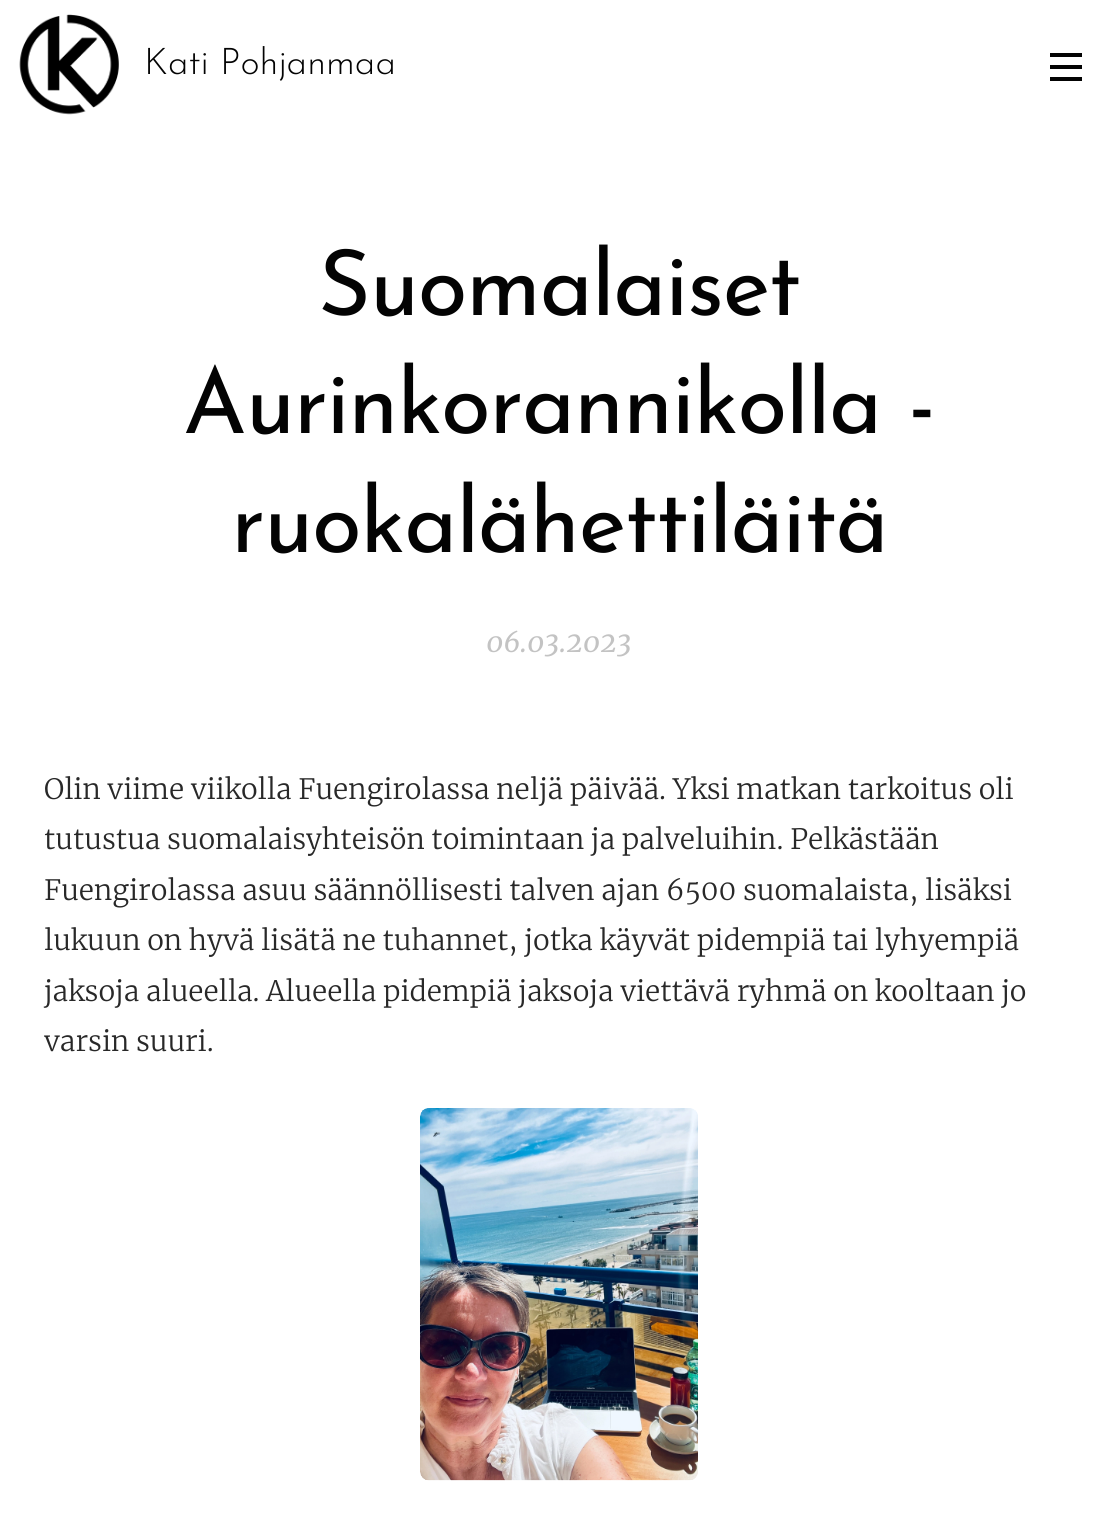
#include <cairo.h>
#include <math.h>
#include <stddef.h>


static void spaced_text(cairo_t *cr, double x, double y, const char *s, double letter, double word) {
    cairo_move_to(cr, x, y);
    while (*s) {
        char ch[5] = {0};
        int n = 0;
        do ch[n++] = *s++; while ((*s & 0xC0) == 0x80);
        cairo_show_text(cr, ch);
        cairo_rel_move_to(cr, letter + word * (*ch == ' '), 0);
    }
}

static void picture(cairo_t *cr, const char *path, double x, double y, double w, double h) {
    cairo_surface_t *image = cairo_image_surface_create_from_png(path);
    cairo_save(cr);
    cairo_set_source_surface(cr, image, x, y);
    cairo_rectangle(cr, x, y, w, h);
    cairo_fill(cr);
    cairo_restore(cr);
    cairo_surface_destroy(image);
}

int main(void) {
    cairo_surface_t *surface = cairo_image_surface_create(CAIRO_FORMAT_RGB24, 1118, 1524);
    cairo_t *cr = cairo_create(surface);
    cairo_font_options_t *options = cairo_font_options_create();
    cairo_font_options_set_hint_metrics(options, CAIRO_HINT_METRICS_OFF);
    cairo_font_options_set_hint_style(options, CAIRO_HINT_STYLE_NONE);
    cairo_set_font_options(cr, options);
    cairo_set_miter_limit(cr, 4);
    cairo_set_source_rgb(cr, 1, 1, 1);
    cairo_paint(cr);
    picture(cr, "img1.png", 19, 14, 100, 101);
    cairo_select_font_face(cr, "Josefin Sans Light", CAIRO_FONT_SLANT_NORMAL, CAIRO_FONT_WEIGHT_NORMAL);
    cairo_set_font_size(cr, 36.75);
    cairo_set_source_rgb(cr, 0.012, 0.012, 0.012);
    cairo_move_to(cr, 144, 74);
    cairo_show_text(cr, "Kati Pohjanmaa");
    cairo_rectangle(cr, 1050, 65, 32, 4);
    cairo_fill(cr);
    cairo_rectangle(cr, 1050, 53, 32, 4);
    cairo_fill(cr);
    cairo_rectangle(cr, 1050, 77, 32, 4);
    cairo_fill(cr);
    cairo_select_font_face(cr, "Josefin Sans", CAIRO_FONT_SLANT_NORMAL, CAIRO_FONT_WEIGHT_NORMAL);
    cairo_set_font_size(cr, 91);
    spaced_text(cr, 318, 315, "Suomalaiset", -1.4, 0);
    spaced_text(cr, 183, 433, "Aurinkorannikolla -", -1.4, 0);
    spaced_text(cr, 231, 552, "ruokalähettiläitä", -1.4, 0);
    cairo_select_font_face(cr, "Merriweather", CAIRO_FONT_SLANT_ITALIC, CAIRO_FONT_WEIGHT_NORMAL);
    cairo_set_font_size(cr, 28);
    cairo_set_source_rgb(cr, 0.765, 0.765, 0.765);
    cairo_move_to(cr, 486, 652);
    cairo_show_text(cr, "06.03.2023");
    cairo_select_font_face(cr, "Merriweather Light", CAIRO_FONT_SLANT_NORMAL, CAIRO_FONT_WEIGHT_NORMAL);
    cairo_set_source_rgb(cr, 0.157, 0.157, 0.157);
    cairo_move_to(cr, 44, 799);
    cairo_show_text(cr, "Olin viime viikolla Fuengirolassa neljä päivää. Yksi matkan tarkoitus oli");
    cairo_move_to(cr, 44, 849);
    cairo_show_text(cr, "tutustua suomalaisyhteisön toimintaan ja palveluihin. Pelkästään");
    cairo_move_to(cr, 44, 900);
    cairo_show_text(cr, "Fuengirolassa asuu säännöllisesti talven ajan 6500 suomalaista, lisäksi");
    cairo_move_to(cr, 44, 950);
    cairo_show_text(cr, "lukuun on hyvä lisätä ne tuhannet, jotka käyvät pidempiä tai lyhyempiä");
    cairo_move_to(cr, 44, 1001);
    cairo_show_text(cr, "jaksoja alueella. Alueella pidempiä jaksoja viettävä ryhmä on kooltaan jo");
    cairo_move_to(cr, 44, 1051);
    cairo_show_text(cr, "varsin suuri.");
    picture(cr, "img2.png", 420, 1108, 278, 373);
    cairo_surface_write_to_png(surface, "page.png");
    cairo_font_options_destroy(options);
    cairo_destroy(cr);
    cairo_surface_destroy(surface);
    return 0;
}
